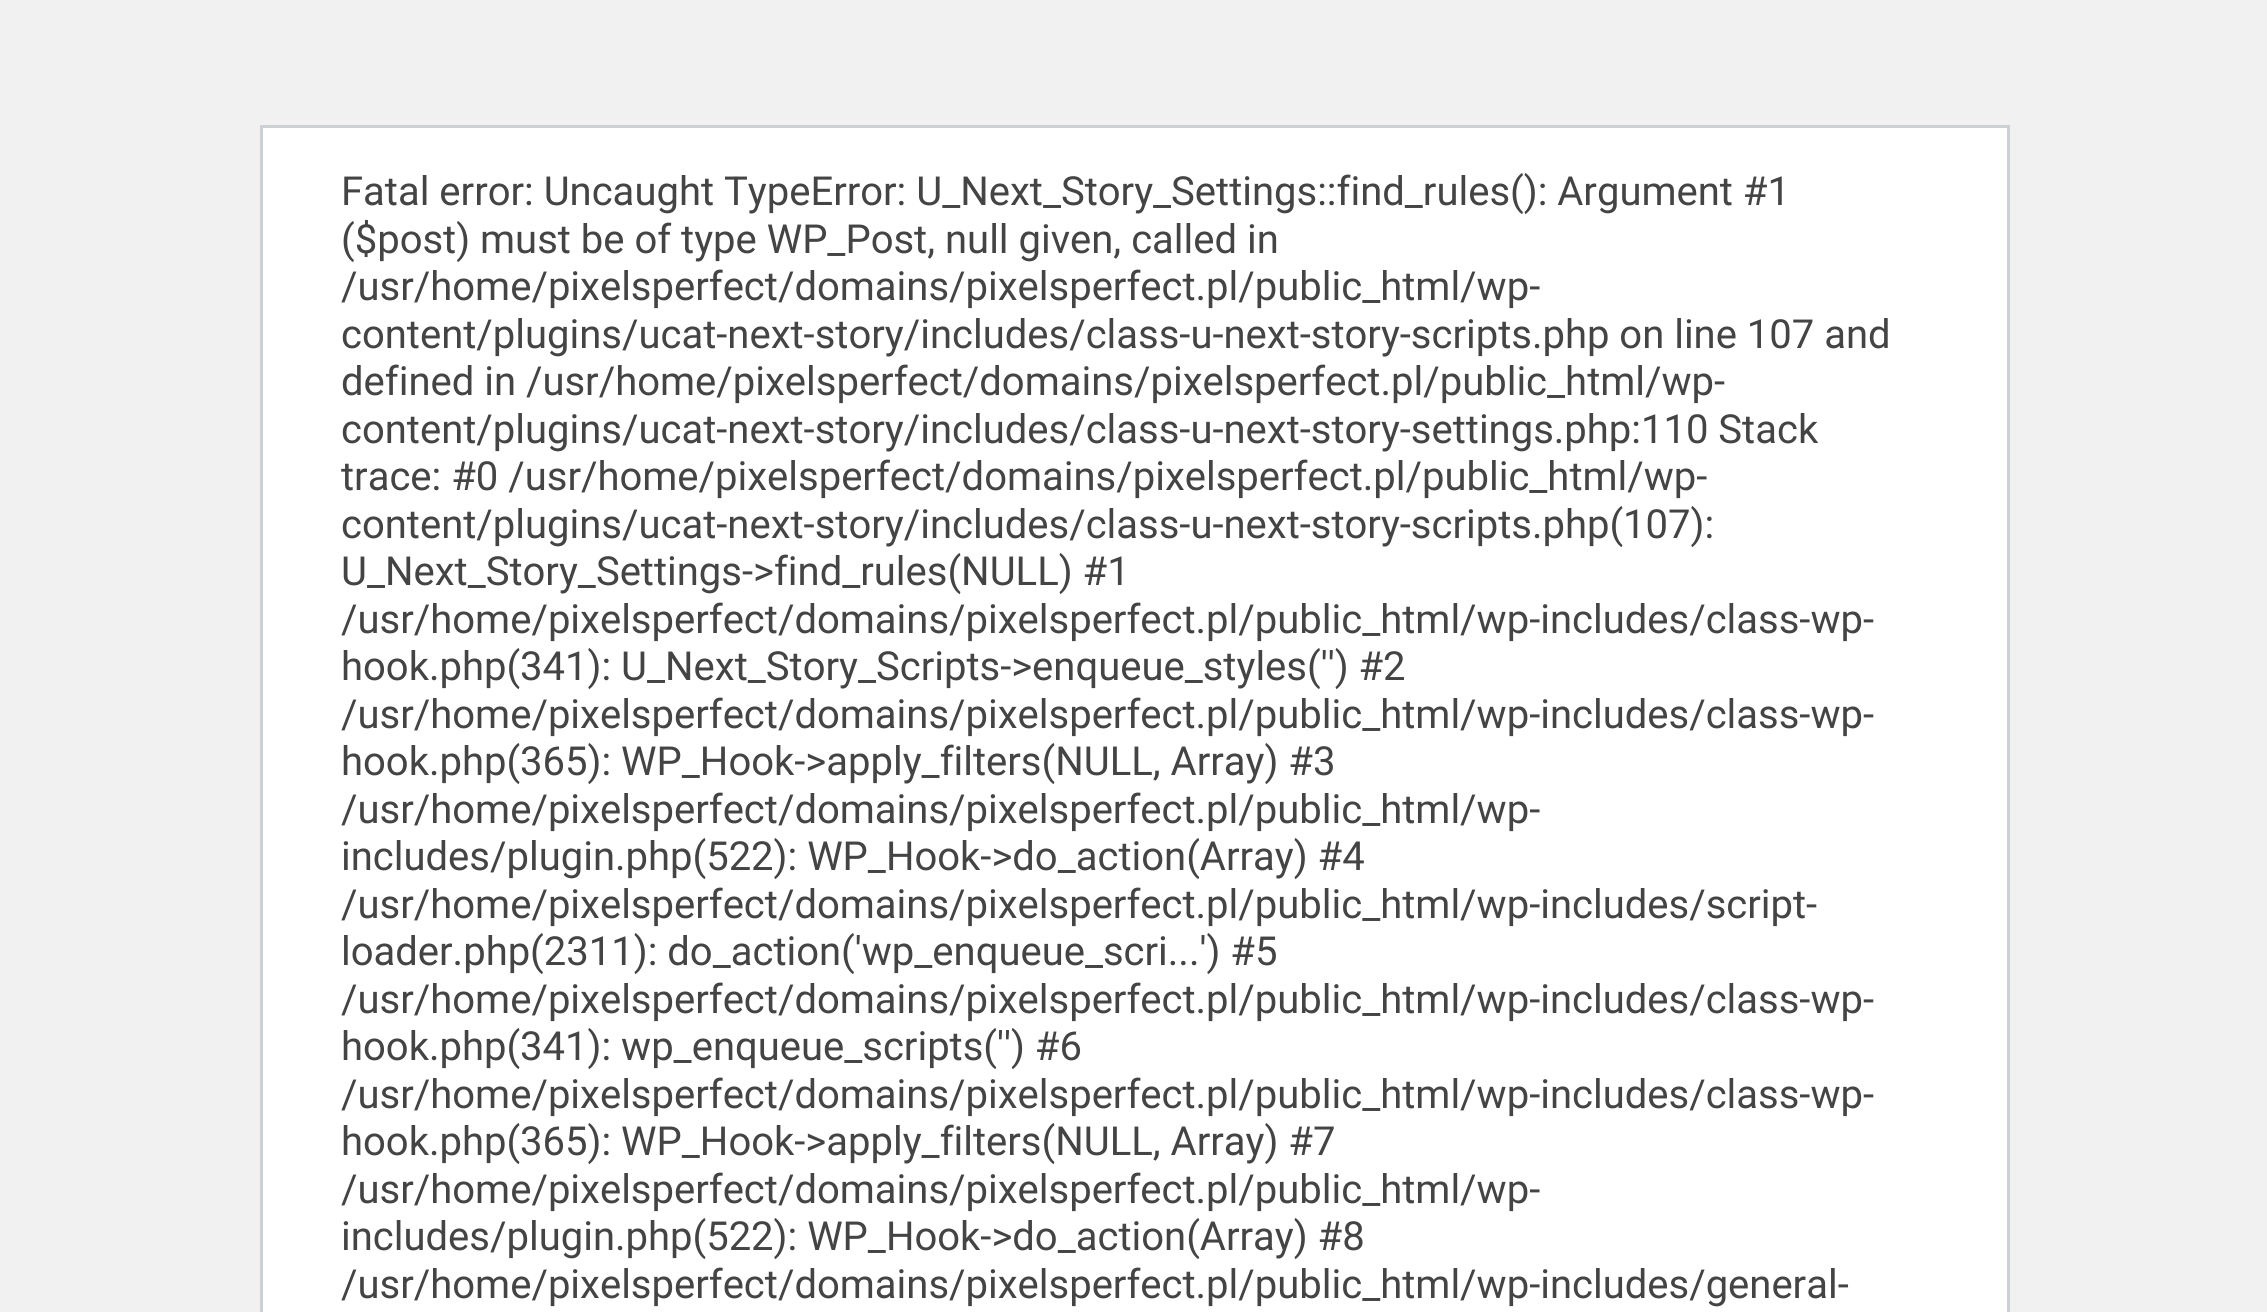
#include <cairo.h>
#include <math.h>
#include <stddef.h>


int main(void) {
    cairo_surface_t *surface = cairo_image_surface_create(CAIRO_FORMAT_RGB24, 2267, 1312);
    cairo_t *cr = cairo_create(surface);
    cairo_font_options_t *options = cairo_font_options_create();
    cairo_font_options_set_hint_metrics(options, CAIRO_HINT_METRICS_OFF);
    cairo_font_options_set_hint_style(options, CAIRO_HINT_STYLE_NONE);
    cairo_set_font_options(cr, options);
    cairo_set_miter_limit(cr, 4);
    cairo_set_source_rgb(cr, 0.945, 0.945, 0.945);
    cairo_paint(cr);
    cairo_set_source_rgb(cr, 1, 1, 1);
    cairo_rectangle(cr, 261.5, 126.5, 1747, 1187);
    cairo_fill_preserve(cr);
    cairo_set_source_rgb(cr, 0.8, 0.816, 0.831);
    cairo_set_line_width(cr, 3);
    cairo_stroke(cr);
    cairo_select_font_face(cr, "Roboto", CAIRO_FONT_SLANT_NORMAL, CAIRO_FONT_WEIGHT_NORMAL);
    cairo_set_font_size(cr, 40);
    cairo_set_source_rgb(cr, 0.267, 0.267, 0.267);
    cairo_move_to(cr, 341, 205);
    cairo_show_text(cr, "Fatal error: Uncaught TypeError: U_Next_Story_Settings::find_rules(): Argument #1");
    cairo_move_to(cr, 341, 253);
    cairo_show_text(cr, "($post) must be of type WP_Post, null given, called in");
    cairo_move_to(cr, 341, 300);
    cairo_show_text(cr, "/usr/home/pixelsperfect/domains/pixelsperfect.pl/public_html/wp-");
    cairo_move_to(cr, 341, 348);
    cairo_show_text(cr, "content/plugins/ucat-next-story/includes/class-u-next-story-scripts.php on line 107 and");
    cairo_move_to(cr, 341, 395);
    cairo_show_text(cr, "defined in /usr/home/pixelsperfect/domains/pixelsperfect.pl/public_html/wp-");
    cairo_move_to(cr, 341, 443);
    cairo_show_text(cr, "content/plugins/ucat-next-story/includes/class-u-next-story-settings.php:110 Stack");
    cairo_move_to(cr, 341, 490);
    cairo_show_text(cr, "trace: #0 /usr/home/pixelsperfect/domains/pixelsperfect.pl/public_html/wp-");
    cairo_move_to(cr, 341, 538);
    cairo_show_text(cr, "content/plugins/ucat-next-story/includes/class-u-next-story-scripts.php(107):");
    cairo_move_to(cr, 341, 585);
    cairo_show_text(cr, "U_Next_Story_Settings->find_rules(NULL) #1");
    cairo_move_to(cr, 341, 633);
    cairo_show_text(cr, "/usr/home/pixelsperfect/domains/pixelsperfect.pl/public_html/wp-includes/class-wp-");
    cairo_move_to(cr, 341, 680);
    cairo_show_text(cr, "hook.php(341): U_Next_Story_Scripts->enqueue_styles('') #2");
    cairo_move_to(cr, 341, 728);
    cairo_show_text(cr, "/usr/home/pixelsperfect/domains/pixelsperfect.pl/public_html/wp-includes/class-wp-");
    cairo_move_to(cr, 341, 775);
    cairo_show_text(cr, "hook.php(365): WP_Hook->apply_filters(NULL, Array) #3");
    cairo_move_to(cr, 341, 823);
    cairo_show_text(cr, "/usr/home/pixelsperfect/domains/pixelsperfect.pl/public_html/wp-");
    cairo_move_to(cr, 341, 870);
    cairo_show_text(cr, "includes/plugin.php(522): WP_Hook->do_action(Array) #4");
    cairo_move_to(cr, 341, 918);
    cairo_show_text(cr, "/usr/home/pixelsperfect/domains/pixelsperfect.pl/public_html/wp-includes/script-");
    cairo_move_to(cr, 341, 965);
    cairo_show_text(cr, "loader.php(2311): do_action('wp_enqueue_scri...') #5");
    cairo_move_to(cr, 341, 1013);
    cairo_show_text(cr, "/usr/home/pixelsperfect/domains/pixelsperfect.pl/public_html/wp-includes/class-wp-");
    cairo_move_to(cr, 341, 1060);
    cairo_show_text(cr, "hook.php(341): wp_enqueue_scripts('') #6");
    cairo_move_to(cr, 341, 1108);
    cairo_show_text(cr, "/usr/home/pixelsperfect/domains/pixelsperfect.pl/public_html/wp-includes/class-wp-");
    cairo_move_to(cr, 341, 1155);
    cairo_show_text(cr, "hook.php(365): WP_Hook->apply_filters(NULL, Array) #7");
    cairo_move_to(cr, 341, 1203);
    cairo_show_text(cr, "/usr/home/pixelsperfect/domains/pixelsperfect.pl/public_html/wp-");
    cairo_move_to(cr, 341, 1250);
    cairo_show_text(cr, "includes/plugin.php(522): WP_Hook->do_action(Array) #8");
    cairo_move_to(cr, 341, 1298);
    cairo_show_text(cr, "/usr/home/pixelsperfect/domains/pixelsperfect.pl/public_html/wp-includes/general-");
    cairo_surface_write_to_png(surface, "page.png");
    cairo_font_options_destroy(options);
    cairo_destroy(cr);
    cairo_surface_destroy(surface);
    return 0;
}
